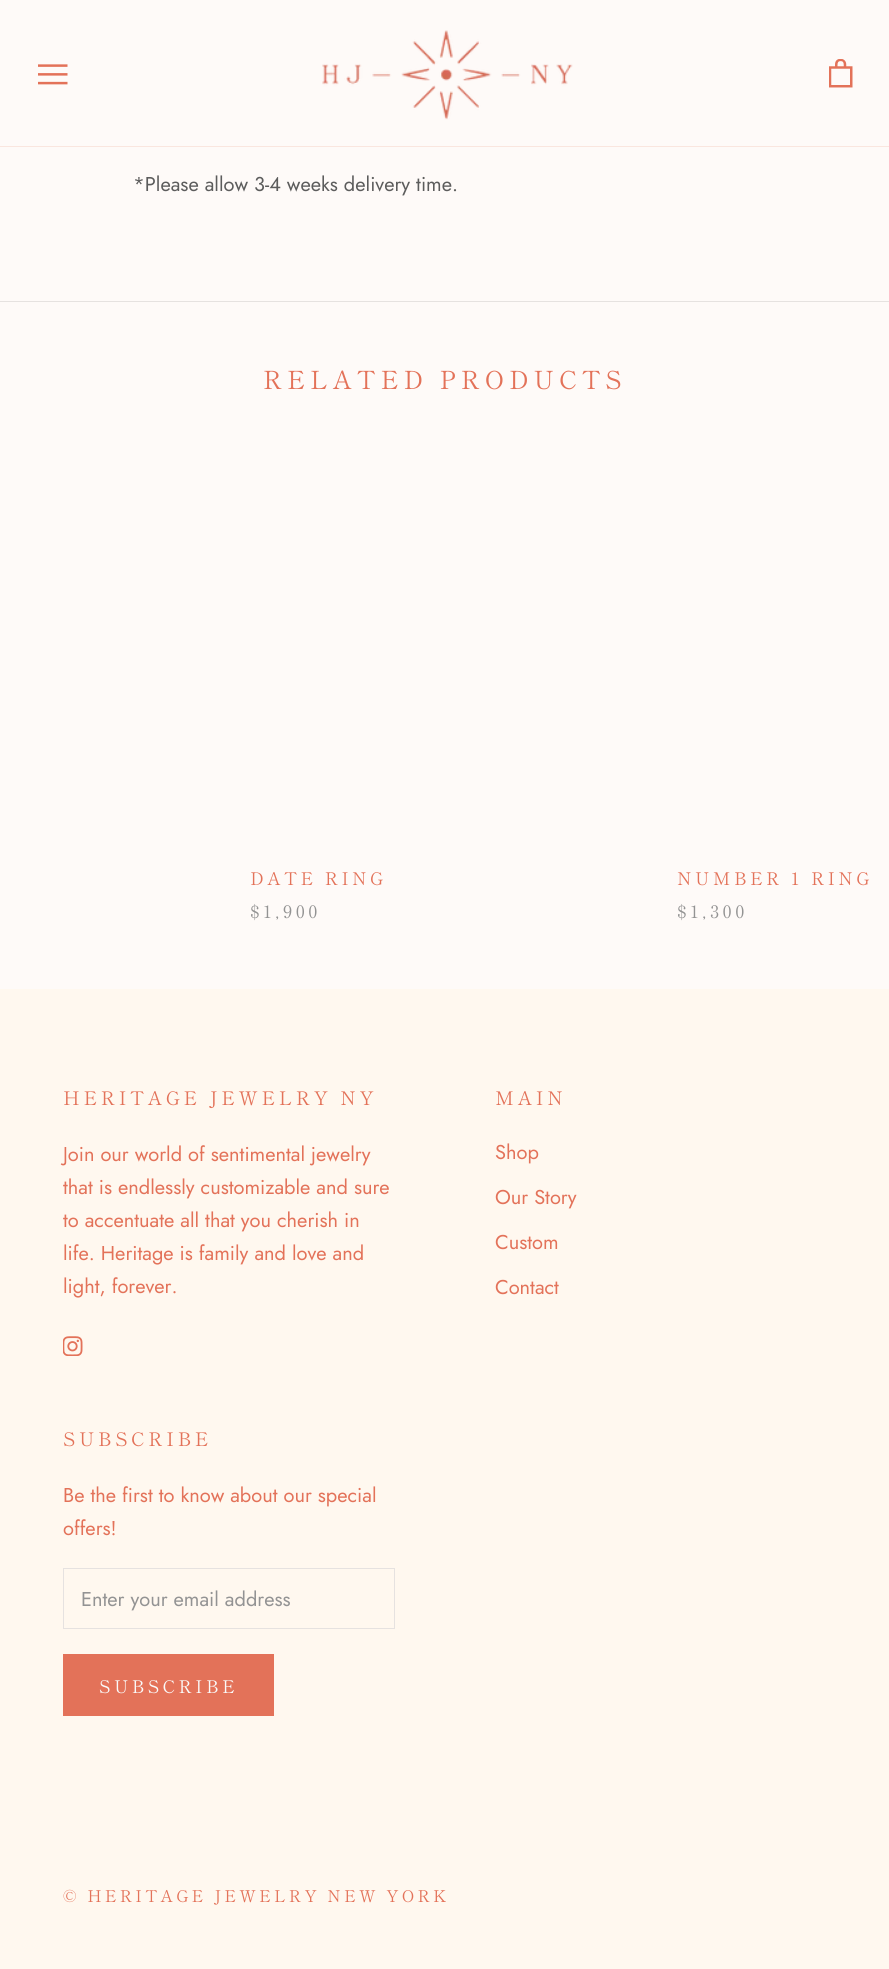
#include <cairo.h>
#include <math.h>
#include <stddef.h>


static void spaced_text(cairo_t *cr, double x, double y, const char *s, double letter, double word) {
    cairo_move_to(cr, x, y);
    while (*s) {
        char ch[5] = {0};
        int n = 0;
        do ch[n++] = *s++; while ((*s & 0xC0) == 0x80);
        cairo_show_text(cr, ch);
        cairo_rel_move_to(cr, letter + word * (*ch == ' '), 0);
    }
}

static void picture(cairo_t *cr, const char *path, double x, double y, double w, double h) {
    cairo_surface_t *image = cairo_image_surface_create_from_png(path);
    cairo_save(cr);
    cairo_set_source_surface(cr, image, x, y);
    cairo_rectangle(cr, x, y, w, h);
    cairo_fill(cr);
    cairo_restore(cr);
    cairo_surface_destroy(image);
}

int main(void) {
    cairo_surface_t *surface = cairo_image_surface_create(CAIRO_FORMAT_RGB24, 889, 1969);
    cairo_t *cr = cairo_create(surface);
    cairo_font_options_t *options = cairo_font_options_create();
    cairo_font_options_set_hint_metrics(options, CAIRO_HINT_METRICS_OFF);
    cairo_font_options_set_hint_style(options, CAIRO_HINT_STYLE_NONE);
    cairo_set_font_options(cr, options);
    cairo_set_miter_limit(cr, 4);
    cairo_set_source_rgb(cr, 0.996, 0.98, 0.969);
    cairo_paint(cr);
    cairo_set_source_rgb(cr, 0.98, 0.902, 0.875);
    cairo_rectangle(cr, 0, 146, 889, 1);
    cairo_fill(cr);
    picture(cr, "img1.png", 38, 64, 30, 21);
    picture(cr, "img2.png", 322, 30, 251, 90);
    picture(cr, "img3.png", 829, 59, 24, 29);
    cairo_select_font_face(cr, "Jost", CAIRO_FONT_SLANT_NORMAL, CAIRO_FONT_WEIGHT_NORMAL);
    cairo_set_font_size(cr, 20);
    cairo_set_source_rgb(cr, 0.361, 0.361, 0.361);
    cairo_move_to(cr, 133, 191);
    cairo_show_text(cr, "*Please allow 3-4 weeks delivery time.");
    cairo_set_source_rgb(cr, 0.902, 0.886, 0.878);
    cairo_rectangle(cr, 0, 301, 889, 1);
    cairo_fill(cr);
    cairo_select_font_face(cr, "Shippori Mincho", CAIRO_FONT_SLANT_NORMAL, CAIRO_FONT_WEIGHT_NORMAL);
    cairo_set_font_size(cr, 25);
    cairo_set_source_rgb(cr, 0.89, 0.447, 0.349);
    spaced_text(cr, 263, 389, "RELATED PRODUCTS", 5, 0);
    cairo_set_font_size(cr, 17.5);
    spaced_text(cr, 250, 885, "DATE RING", 3.5, 0);
    cairo_set_source_rgb(cr, 0.576, 0.576, 0.576);
    spaced_text(cr, 250, 918, "$1,900", 3.5, 0);
    cairo_set_source_rgb(cr, 0.89, 0.447, 0.349);
    spaced_text(cr, 677, 885, "NUMBER 1 RING", 3.5, 0);
    cairo_set_source_rgb(cr, 0.576, 0.576, 0.576);
    spaced_text(cr, 677, 918, "$1,300", 3.5, 0);
    cairo_set_source_rgb(cr, 1, 0.969, 0.937);
    cairo_rectangle(cr, 0, 989, 889, 980);
    cairo_fill(cr);
    cairo_set_font_size(cr, 18.75);
    cairo_set_source_rgb(cr, 0.89, 0.447, 0.349);
    spaced_text(cr, 63, 1105, "HERITAGE JEWELRY NY", 3.75, 0);
    cairo_select_font_face(cr, "Jost", CAIRO_FONT_SLANT_NORMAL, CAIRO_FONT_WEIGHT_NORMAL);
    cairo_set_font_size(cr, 20);
    cairo_move_to(cr, 63, 1161);
    cairo_show_text(cr, "Join our world of sentimental jewelry");
    cairo_move_to(cr, 63, 1194);
    cairo_show_text(cr, "that is endlessly customizable and sure");
    cairo_move_to(cr, 63, 1227);
    cairo_show_text(cr, "to accentuate all that you cherish in");
    cairo_move_to(cr, 63, 1260);
    cairo_show_text(cr, "life. Heritage is family and love and");
    cairo_move_to(cr, 63, 1293);
    cairo_show_text(cr, "light, forever.");
    picture(cr, "img4.png", 63, 1336, 20, 20);
    cairo_select_font_face(cr, "Shippori Mincho", CAIRO_FONT_SLANT_NORMAL, CAIRO_FONT_WEIGHT_NORMAL);
    cairo_set_font_size(cr, 18.75);
    spaced_text(cr, 495, 1105, "MAIN", 3.75, 0);
    cairo_select_font_face(cr, "Jost", CAIRO_FONT_SLANT_NORMAL, CAIRO_FONT_WEIGHT_NORMAL);
    cairo_set_font_size(cr, 20);
    cairo_move_to(cr, 495, 1159);
    cairo_show_text(cr, "Shop");
    cairo_move_to(cr, 495, 1204);
    cairo_show_text(cr, "Our Story");
    cairo_move_to(cr, 495, 1249);
    cairo_show_text(cr, "Custom");
    cairo_move_to(cr, 495, 1294);
    cairo_show_text(cr, "Contact");
    cairo_select_font_face(cr, "Shippori Mincho", CAIRO_FONT_SLANT_NORMAL, CAIRO_FONT_WEIGHT_NORMAL);
    cairo_set_font_size(cr, 18.75);
    spaced_text(cr, 63, 1446, "SUBSCRIBE", 3.75, 0);
    cairo_select_font_face(cr, "Jost", CAIRO_FONT_SLANT_NORMAL, CAIRO_FONT_WEIGHT_NORMAL);
    cairo_set_font_size(cr, 20);
    cairo_move_to(cr, 63, 1502);
    cairo_show_text(cr, "Be the first to know about our special");
    cairo_move_to(cr, 63, 1535);
    cairo_show_text(cr, "offers!");
    cairo_rectangle(cr, 63.5, 1568.5, 331, 60);
    cairo_set_source_rgb(cr, 0.902, 0.886, 0.878);
    cairo_set_line_width(cr, 1);
    cairo_stroke(cr);
    cairo_set_source_rgb(cr, 0.576, 0.576, 0.576);
    cairo_move_to(cr, 81, 1606);
    cairo_show_text(cr, "Enter your email address");
    cairo_rectangle(cr, 63.5, 1654.5, 210, 61);
    cairo_set_source_rgb(cr, 0.89, 0.447, 0.349);
    cairo_stroke(cr);
    cairo_rectangle(cr, 64, 1655, 209, 60);
    cairo_fill(cr);
    cairo_select_font_face(cr, "Shippori Mincho", CAIRO_FONT_SLANT_NORMAL, CAIRO_FONT_WEIGHT_NORMAL);
    cairo_set_font_size(cr, 17.5);
    cairo_set_source_rgb(cr, 0.98, 0.98, 0.98);
    spaced_text(cr, 99, 1693, "SUBSCRIBE", 3.5, 0);
    cairo_set_font_size(cr, 16.25);
    cairo_set_source_rgb(cr, 0.89, 0.447, 0.349);
    spaced_text(cr, 63, 1902, "© HERITAGE JEWELRY NEW YORK", 3.25, 0);
    cairo_surface_write_to_png(surface, "page.png");
    cairo_font_options_destroy(options);
    cairo_destroy(cr);
    cairo_surface_destroy(surface);
    return 0;
}
